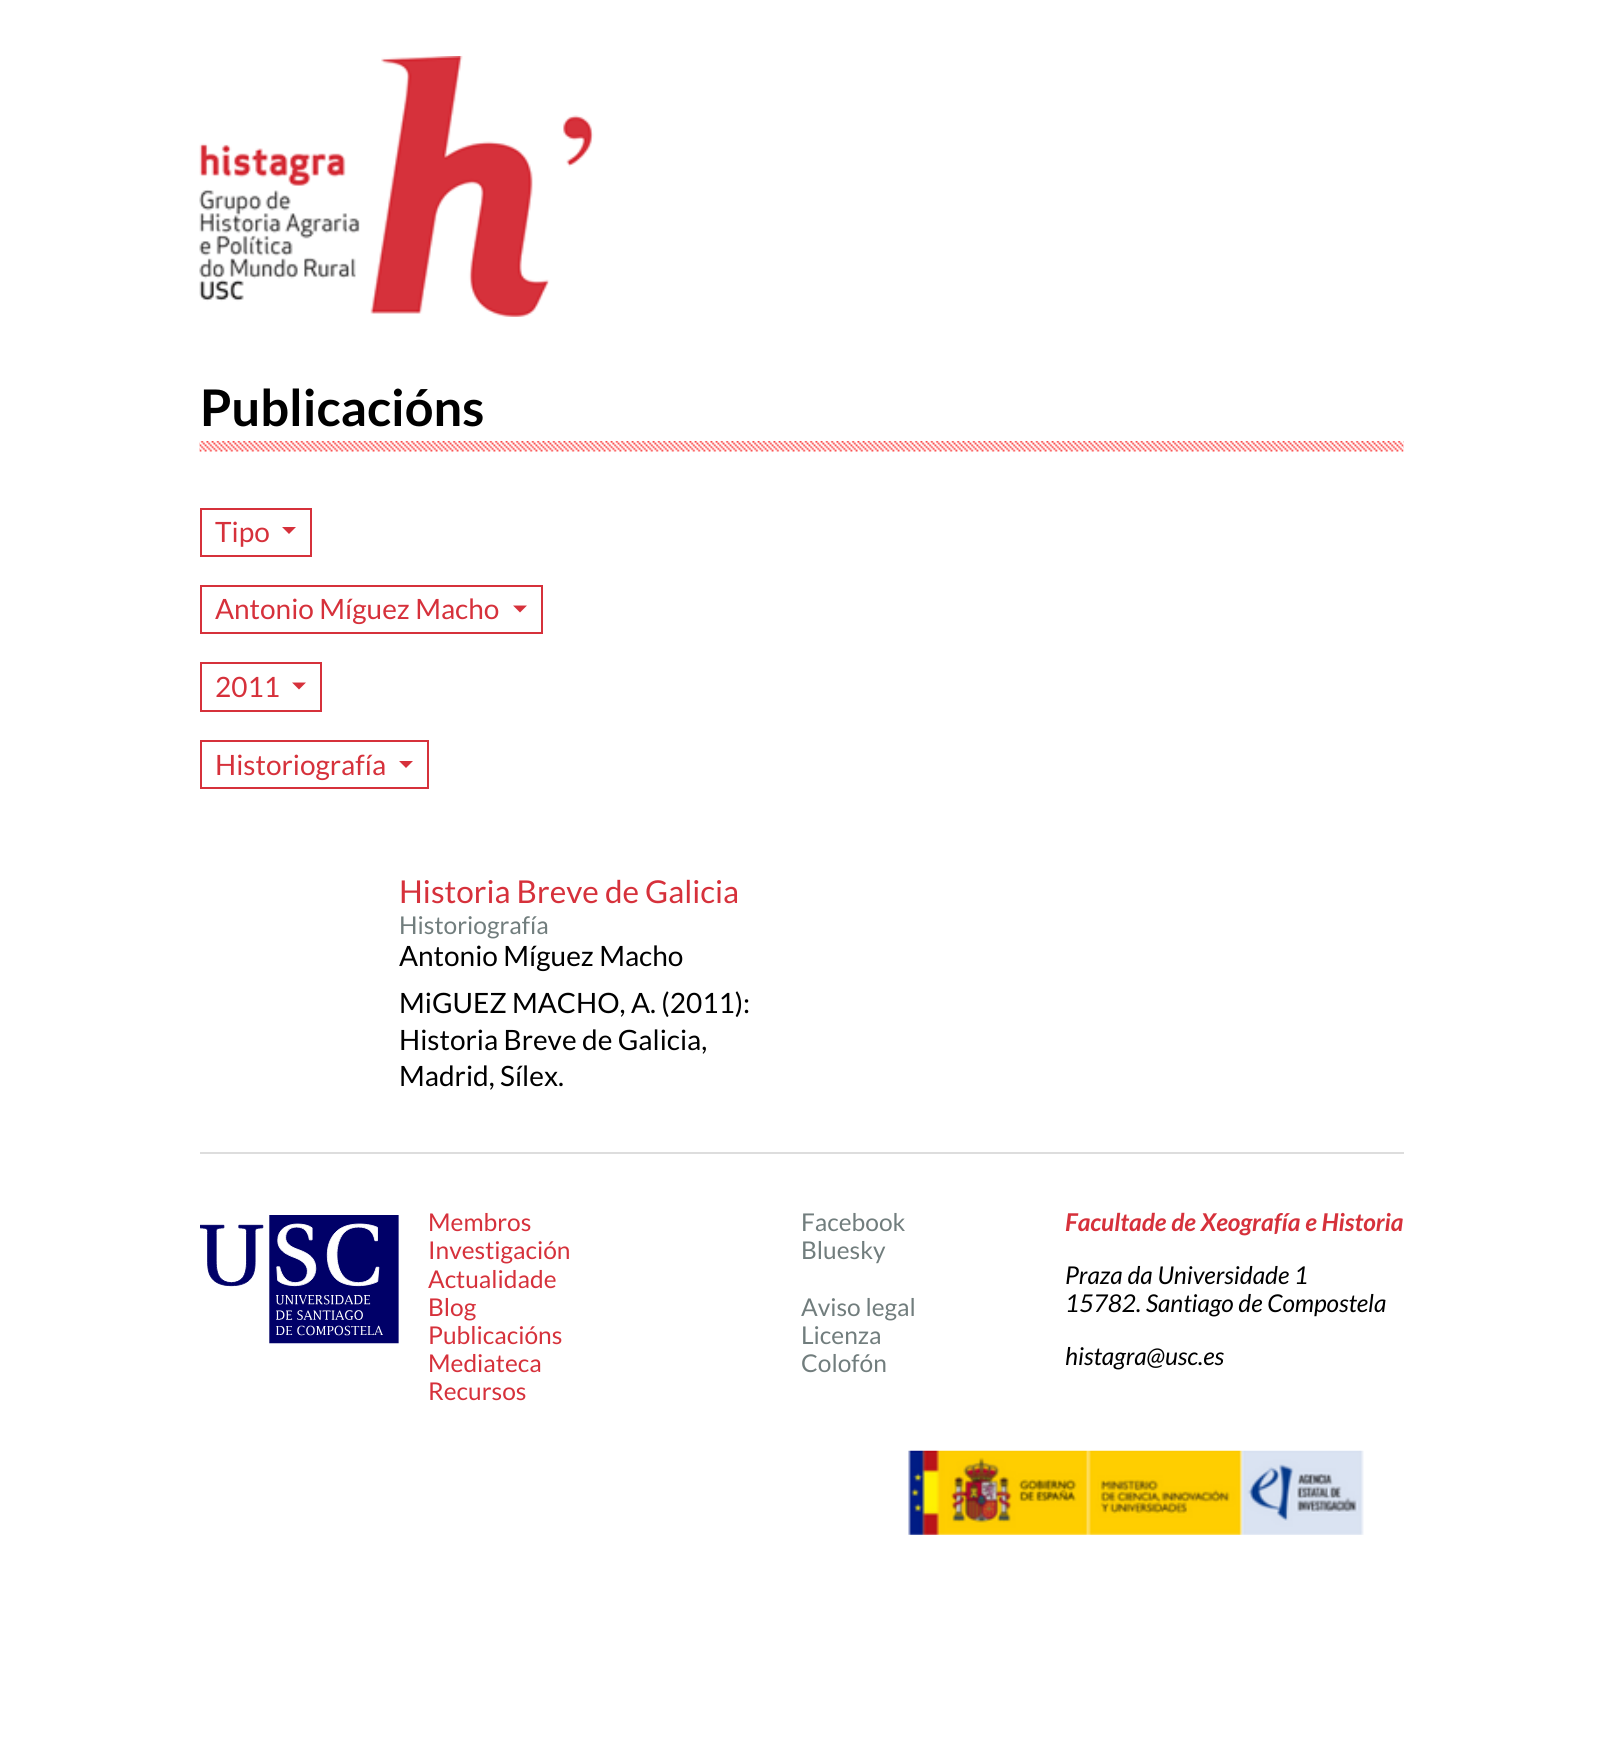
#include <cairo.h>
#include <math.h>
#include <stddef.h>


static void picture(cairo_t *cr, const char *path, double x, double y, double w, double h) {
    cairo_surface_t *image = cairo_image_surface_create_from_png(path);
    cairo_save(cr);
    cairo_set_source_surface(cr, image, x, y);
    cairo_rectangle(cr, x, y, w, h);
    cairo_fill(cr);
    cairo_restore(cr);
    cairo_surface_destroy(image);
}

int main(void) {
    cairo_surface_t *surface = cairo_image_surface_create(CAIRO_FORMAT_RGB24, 1603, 1749);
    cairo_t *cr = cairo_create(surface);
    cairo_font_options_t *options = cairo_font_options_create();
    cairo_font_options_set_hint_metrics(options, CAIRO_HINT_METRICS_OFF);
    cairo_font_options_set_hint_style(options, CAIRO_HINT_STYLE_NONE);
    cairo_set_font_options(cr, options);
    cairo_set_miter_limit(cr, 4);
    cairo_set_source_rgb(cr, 1, 1, 1);
    cairo_paint(cr);
    picture(cr, "img1.png", 199, 56, 395, 261);
    picture(cr, "img2.png", 199, 441, 1205, 11);
    cairo_select_font_face(cr, "Lato", CAIRO_FONT_SLANT_NORMAL, CAIRO_FONT_WEIGHT_BOLD);
    cairo_set_font_size(cr, 50.5);
    cairo_set_source_rgb(cr, 0, 0, 0);
    cairo_move_to(cr, 200, 426);
    cairo_show_text(cr, "Publicacións");
    cairo_rectangle(cr, 201, 509, 110, 47);
    cairo_set_source_rgb(cr, 0.839, 0.192, 0.231);
    cairo_stroke(cr);
    cairo_select_font_face(cr, "Lato", CAIRO_FONT_SLANT_NORMAL, CAIRO_FONT_WEIGHT_NORMAL);
    cairo_set_font_size(cr, 28);
    cairo_move_to(cr, 215, 542);
    cairo_show_text(cr, "Tipo");
    cairo_new_path(cr);
    cairo_move_to(cr, 282, 527);
    cairo_line_to(cr, 296, 527);
    cairo_line_to(cr, 289, 534);
    cairo_close_path(cr);
    cairo_fill(cr);
    cairo_rectangle(cr, 201, 586, 341, 47);
    cairo_stroke(cr);
    cairo_move_to(cr, 215, 619);
    cairo_show_text(cr, "Antonio Míguez Macho");
    cairo_new_path(cr);
    cairo_move_to(cr, 513, 605.5);
    cairo_line_to(cr, 527, 605.5);
    cairo_line_to(cr, 520, 612.5);
    cairo_close_path(cr);
    cairo_fill(cr);
    cairo_rectangle(cr, 201, 663, 120, 48);
    cairo_stroke(cr);
    cairo_move_to(cr, 215, 697);
    cairo_show_text(cr, "2011");
    cairo_new_path(cr);
    cairo_move_to(cr, 292, 682.5);
    cairo_line_to(cr, 306, 682.5);
    cairo_line_to(cr, 299, 689.5);
    cairo_close_path(cr);
    cairo_fill(cr);
    cairo_rectangle(cr, 201, 741, 227, 47);
    cairo_stroke(cr);
    cairo_move_to(cr, 215, 775);
    cairo_show_text(cr, "Historiografía");
    cairo_new_path(cr);
    cairo_move_to(cr, 399, 761);
    cairo_line_to(cr, 413, 761);
    cairo_line_to(cr, 406, 768);
    cairo_close_path(cr);
    cairo_fill(cr);
    cairo_set_font_size(cr, 31.5);
    cairo_move_to(cr, 399, 903);
    cairo_show_text(cr, "Historia Breve de Galicia");
    cairo_set_font_size(cr, 24.5);
    cairo_set_source_rgb(cr, 0.443, 0.49, 0.49);
    cairo_move_to(cr, 399, 934);
    cairo_show_text(cr, "Historiografía");
    cairo_set_font_size(cr, 28);
    cairo_set_source_rgb(cr, 0, 0, 0);
    cairo_move_to(cr, 399, 966);
    cairo_show_text(cr, "Antonio Míguez Macho");
    cairo_move_to(cr, 399, 1013);
    cairo_show_text(cr, "MiGUEZ MACHO, A. (2011):");
    cairo_move_to(cr, 399, 1050);
    cairo_show_text(cr, "Historia Breve de Galicia,");
    cairo_move_to(cr, 399, 1086);
    cairo_show_text(cr, "Madrid, Sílex.");
    cairo_set_source_rgb(cr, 0.867, 0.867, 0.867);
    cairo_rectangle(cr, 200, 1152, 1204, 2);
    cairo_fill(cr);
    picture(cr, "img3.png", 200, 1215, 199, 129);
    cairo_set_font_size(cr, 24.5);
    cairo_set_source_rgb(cr, 0.839, 0.192, 0.231);
    cairo_move_to(cr, 428, 1231);
    cairo_show_text(cr, "Membros");
    cairo_move_to(cr, 428, 1259);
    cairo_show_text(cr, "Investigación");
    cairo_move_to(cr, 428, 1288);
    cairo_show_text(cr, "Actualidade");
    cairo_move_to(cr, 428, 1316);
    cairo_show_text(cr, "Blog");
    cairo_move_to(cr, 428, 1344);
    cairo_show_text(cr, "Publicacións");
    cairo_move_to(cr, 428, 1372);
    cairo_show_text(cr, "Mediateca");
    cairo_move_to(cr, 428, 1400);
    cairo_show_text(cr, "Recursos");
    cairo_set_source_rgb(cr, 0.443, 0.49, 0.49);
    cairo_move_to(cr, 801, 1231);
    cairo_show_text(cr, "Facebook");
    cairo_move_to(cr, 801, 1259);
    cairo_show_text(cr, "Bluesky");
    cairo_move_to(cr, 801, 1316);
    cairo_show_text(cr, "Aviso legal");
    cairo_move_to(cr, 801, 1344);
    cairo_show_text(cr, "Licenza");
    cairo_move_to(cr, 801, 1372);
    cairo_show_text(cr, "Colofón");
    cairo_select_font_face(cr, "Lato", CAIRO_FONT_SLANT_ITALIC, CAIRO_FONT_WEIGHT_BOLD);
    cairo_set_source_rgb(cr, 0.839, 0.192, 0.231);
    cairo_move_to(cr, 1065, 1231);
    cairo_show_text(cr, "Facultade de Xeografía e Historia");
    cairo_select_font_face(cr, "Lato", CAIRO_FONT_SLANT_ITALIC, CAIRO_FONT_WEIGHT_NORMAL);
    cairo_set_source_rgb(cr, 0, 0, 0);
    cairo_move_to(cr, 1065, 1284);
    cairo_show_text(cr, "Praza da Universidade 1");
    cairo_move_to(cr, 1065, 1312);
    cairo_show_text(cr, "15782. Santiago de Compostela");
    cairo_move_to(cr, 1065, 1365);
    cairo_show_text(cr, "histagra@usc.es");
    picture(cr, "img4.png", 908, 1450, 456, 85);
    cairo_surface_write_to_png(surface, "page.png");
    cairo_font_options_destroy(options);
    cairo_destroy(cr);
    cairo_surface_destroy(surface);
    return 0;
}
